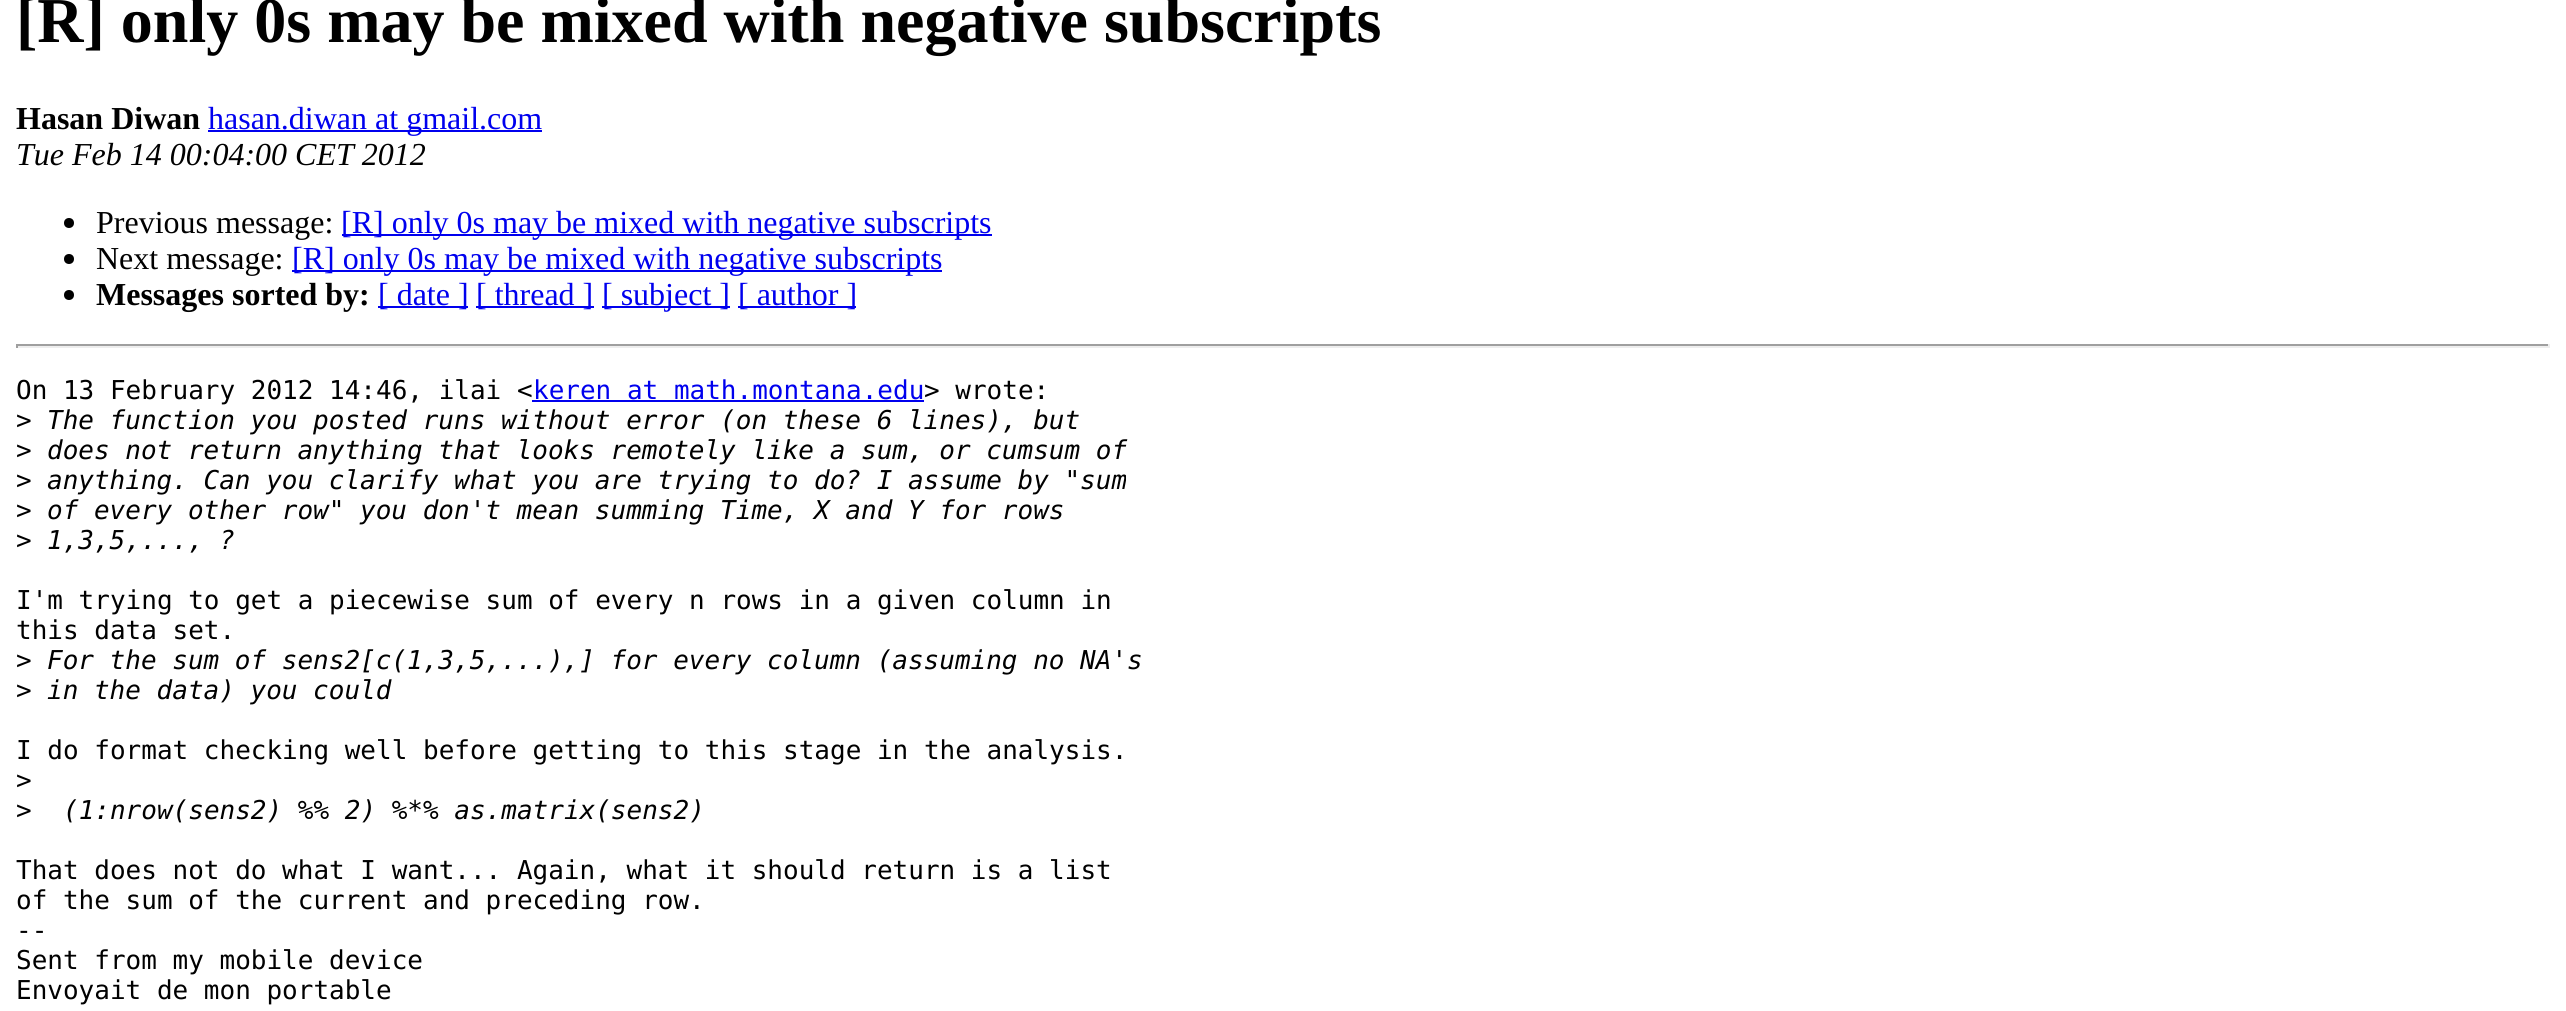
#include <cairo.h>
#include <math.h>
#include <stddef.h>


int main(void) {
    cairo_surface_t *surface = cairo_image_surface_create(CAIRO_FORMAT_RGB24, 2566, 1011);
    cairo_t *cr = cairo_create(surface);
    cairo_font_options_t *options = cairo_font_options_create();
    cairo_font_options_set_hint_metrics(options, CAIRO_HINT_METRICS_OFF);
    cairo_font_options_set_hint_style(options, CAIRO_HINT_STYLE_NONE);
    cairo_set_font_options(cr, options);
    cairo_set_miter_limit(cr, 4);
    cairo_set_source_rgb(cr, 1, 1, 1);
    cairo_paint(cr);
    cairo_select_font_face(cr, "Liberation Serif", CAIRO_FONT_SLANT_NORMAL, CAIRO_FONT_WEIGHT_BOLD);
    cairo_set_font_size(cr, 64);
    cairo_set_source_rgb(cr, 0, 0, 0);
    cairo_move_to(cr, 16, 42);
    cairo_show_text(cr, "[R] only 0s may be mixed with negative subscripts");
    cairo_set_font_size(cr, 32);
    cairo_move_to(cr, 16, 129);
    cairo_show_text(cr, "Hasan Diwan");
    cairo_set_source_rgb(cr, 0, 0, 0.933);
    cairo_rectangle(cr, 208, 130, 334, 2);
    cairo_fill(cr);
    cairo_select_font_face(cr, "Liberation Serif", CAIRO_FONT_SLANT_NORMAL, CAIRO_FONT_WEIGHT_NORMAL);
    cairo_move_to(cr, 208, 129);
    cairo_show_text(cr, "hasan.diwan at gmail.com");
    cairo_select_font_face(cr, "Liberation Serif", CAIRO_FONT_SLANT_ITALIC, CAIRO_FONT_WEIGHT_NORMAL);
    cairo_set_source_rgb(cr, 0, 0, 0);
    cairo_move_to(cr, 16, 165);
    cairo_show_text(cr, "Tue Feb 14 00:04:00 CET 2012");
    cairo_new_path(cr);
    cairo_arc(cr, 69, 223, 5, 0, 2 * M_PI);
    cairo_fill(cr);
    cairo_select_font_face(cr, "Liberation Serif", CAIRO_FONT_SLANT_NORMAL, CAIRO_FONT_WEIGHT_NORMAL);
    cairo_move_to(cr, 96, 233);
    cairo_show_text(cr, "Previous message:");
    cairo_set_source_rgb(cr, 0, 0, 0.933);
    cairo_rectangle(cr, 342, 234, 650, 2);
    cairo_fill(cr);
    cairo_move_to(cr, 341, 233);
    cairo_show_text(cr, "[R] only 0s may be mixed with negative subscripts");
    cairo_set_source_rgb(cr, 0, 0, 0);
    cairo_new_path(cr);
    cairo_arc(cr, 69, 259, 5, 0, 2 * M_PI);
    cairo_fill(cr);
    cairo_move_to(cr, 96, 269);
    cairo_show_text(cr, "Next message:");
    cairo_set_source_rgb(cr, 0, 0, 0.933);
    cairo_rectangle(cr, 292, 270, 650, 2);
    cairo_fill(cr);
    cairo_move_to(cr, 292, 269);
    cairo_show_text(cr, "[R] only 0s may be mixed with negative subscripts");
    cairo_set_source_rgb(cr, 0, 0, 0);
    cairo_new_path(cr);
    cairo_arc(cr, 69, 295, 5, 0, 2 * M_PI);
    cairo_fill(cr);
    cairo_select_font_face(cr, "Liberation Serif", CAIRO_FONT_SLANT_NORMAL, CAIRO_FONT_WEIGHT_BOLD);
    cairo_move_to(cr, 96, 305);
    cairo_show_text(cr, "Messages sorted by:");
    cairo_set_source_rgb(cr, 0, 0, 0.933);
    cairo_rectangle(cr, 378, 306, 90, 2);
    cairo_fill(cr);
    cairo_select_font_face(cr, "Liberation Serif", CAIRO_FONT_SLANT_NORMAL, CAIRO_FONT_WEIGHT_NORMAL);
    cairo_move_to(cr, 378, 305);
    cairo_show_text(cr, "[ date ]");
    cairo_rectangle(cr, 476, 306, 118, 2);
    cairo_fill(cr);
    cairo_move_to(cr, 476, 305);
    cairo_show_text(cr, "[ thread ]");
    cairo_rectangle(cr, 602, 306, 128, 2);
    cairo_fill(cr);
    cairo_move_to(cr, 602, 305);
    cairo_show_text(cr, "[ subject ]");
    cairo_rectangle(cr, 738, 306, 118, 2);
    cairo_fill(cr);
    cairo_move_to(cr, 738, 305);
    cairo_show_text(cr, "[ author ]");
    cairo_set_source_rgb(cr, 0.624, 0.624, 0.624);
    cairo_rectangle(cr, 16, 344, 2534, 2);
    cairo_fill(cr);
    cairo_set_source_rgb(cr, 0.933, 0.933, 0.933);
    cairo_rectangle(cr, 2548, 344, 2, 4);
    cairo_fill(cr);
    cairo_rectangle(cr, 16, 346, 2534, 2);
    cairo_fill(cr);
    cairo_set_source_rgb(cr, 0.624, 0.624, 0.624);
    cairo_rectangle(cr, 16, 344, 2, 4);
    cairo_fill(cr);
    cairo_select_font_face(cr, "DejaVu Sans Mono", CAIRO_FONT_SLANT_NORMAL, CAIRO_FONT_WEIGHT_NORMAL);
    cairo_set_font_size(cr, 26);
    cairo_set_source_rgb(cr, 0, 0, 0);
    cairo_move_to(cr, 16, 399);
    cairo_show_text(cr, "On 13 February 2012 14:46, ilai <");
    cairo_set_source_rgb(cr, 0, 0, 0.933);
    cairo_move_to(cr, 533, 399);
    cairo_show_text(cr, "keren at math.montana.edu");
    cairo_rectangle(cr, 532, 400, 392, 2);
    cairo_fill(cr);
    cairo_set_source_rgb(cr, 0, 0, 0);
    cairo_move_to(cr, 924, 399);
    cairo_show_text(cr, "> wrote:");
    cairo_move_to(cr, 16, 429);
    cairo_show_text(cr, ">");
    cairo_select_font_face(cr, "DejaVu Sans Mono", CAIRO_FONT_SLANT_ITALIC, CAIRO_FONT_WEIGHT_NORMAL);
    cairo_move_to(cr, 47, 429);
    cairo_show_text(cr, "The function you posted runs without error (on these 6 lines), but");
    cairo_select_font_face(cr, "DejaVu Sans Mono", CAIRO_FONT_SLANT_NORMAL, CAIRO_FONT_WEIGHT_NORMAL);
    cairo_move_to(cr, 16, 459);
    cairo_show_text(cr, ">");
    cairo_select_font_face(cr, "DejaVu Sans Mono", CAIRO_FONT_SLANT_ITALIC, CAIRO_FONT_WEIGHT_NORMAL);
    cairo_move_to(cr, 47, 459);
    cairo_show_text(cr, "does not return anything that looks remotely like a sum, or cumsum of");
    cairo_select_font_face(cr, "DejaVu Sans Mono", CAIRO_FONT_SLANT_NORMAL, CAIRO_FONT_WEIGHT_NORMAL);
    cairo_move_to(cr, 16, 489);
    cairo_show_text(cr, ">");
    cairo_select_font_face(cr, "DejaVu Sans Mono", CAIRO_FONT_SLANT_ITALIC, CAIRO_FONT_WEIGHT_NORMAL);
    cairo_move_to(cr, 47, 489);
    cairo_show_text(cr, "anything. Can you clarify what you are trying to do? I assume by \"sum");
    cairo_select_font_face(cr, "DejaVu Sans Mono", CAIRO_FONT_SLANT_NORMAL, CAIRO_FONT_WEIGHT_NORMAL);
    cairo_move_to(cr, 16, 519);
    cairo_show_text(cr, ">");
    cairo_select_font_face(cr, "DejaVu Sans Mono", CAIRO_FONT_SLANT_ITALIC, CAIRO_FONT_WEIGHT_NORMAL);
    cairo_move_to(cr, 47, 519);
    cairo_show_text(cr, "of every other row\" you don't mean summing Time, X and Y for rows");
    cairo_select_font_face(cr, "DejaVu Sans Mono", CAIRO_FONT_SLANT_NORMAL, CAIRO_FONT_WEIGHT_NORMAL);
    cairo_move_to(cr, 16, 549);
    cairo_show_text(cr, ">");
    cairo_select_font_face(cr, "DejaVu Sans Mono", CAIRO_FONT_SLANT_ITALIC, CAIRO_FONT_WEIGHT_NORMAL);
    cairo_move_to(cr, 47, 549);
    cairo_show_text(cr, "1,3,5,..., ?");
    cairo_select_font_face(cr, "DejaVu Sans Mono", CAIRO_FONT_SLANT_NORMAL, CAIRO_FONT_WEIGHT_NORMAL);
    cairo_move_to(cr, 16, 609);
    cairo_show_text(cr, "I'm trying to get a piecewise sum of every n rows in a given column in");
    cairo_move_to(cr, 16, 639);
    cairo_show_text(cr, "this data set.");
    cairo_move_to(cr, 16, 669);
    cairo_show_text(cr, ">");
    cairo_select_font_face(cr, "DejaVu Sans Mono", CAIRO_FONT_SLANT_ITALIC, CAIRO_FONT_WEIGHT_NORMAL);
    cairo_move_to(cr, 47, 669);
    cairo_show_text(cr, "For the sum of sens2[c(1,3,5,...),] for every column (assuming no NA's");
    cairo_select_font_face(cr, "DejaVu Sans Mono", CAIRO_FONT_SLANT_NORMAL, CAIRO_FONT_WEIGHT_NORMAL);
    cairo_move_to(cr, 16, 699);
    cairo_show_text(cr, ">");
    cairo_select_font_face(cr, "DejaVu Sans Mono", CAIRO_FONT_SLANT_ITALIC, CAIRO_FONT_WEIGHT_NORMAL);
    cairo_move_to(cr, 47, 699);
    cairo_show_text(cr, "in the data) you could");
    cairo_select_font_face(cr, "DejaVu Sans Mono", CAIRO_FONT_SLANT_NORMAL, CAIRO_FONT_WEIGHT_NORMAL);
    cairo_move_to(cr, 16, 759);
    cairo_show_text(cr, "I do format checking well before getting to this stage in the analysis.");
    cairo_move_to(cr, 16, 789);
    cairo_show_text(cr, ">");
    cairo_move_to(cr, 16, 819);
    cairo_show_text(cr, ">");
    cairo_select_font_face(cr, "DejaVu Sans Mono", CAIRO_FONT_SLANT_ITALIC, CAIRO_FONT_WEIGHT_NORMAL);
    cairo_move_to(cr, 63, 819);
    cairo_show_text(cr, "(1:nrow(sens2) %% 2) %*% as.matrix(sens2)");
    cairo_select_font_face(cr, "DejaVu Sans Mono", CAIRO_FONT_SLANT_NORMAL, CAIRO_FONT_WEIGHT_NORMAL);
    cairo_move_to(cr, 16, 879);
    cairo_show_text(cr, "That does not do what I want... Again, what it should return is a list");
    cairo_move_to(cr, 16, 909);
    cairo_show_text(cr, "of the sum of the current and preceding row.");
    cairo_move_to(cr, 16, 939);
    cairo_show_text(cr, "--");
    cairo_move_to(cr, 16, 969);
    cairo_show_text(cr, "Sent from my mobile device");
    cairo_move_to(cr, 16, 999);
    cairo_show_text(cr, "Envoyait de mon portable");
    cairo_surface_write_to_png(surface, "page.png");
    cairo_font_options_destroy(options);
    cairo_destroy(cr);
    cairo_surface_destroy(surface);
    return 0;
}
